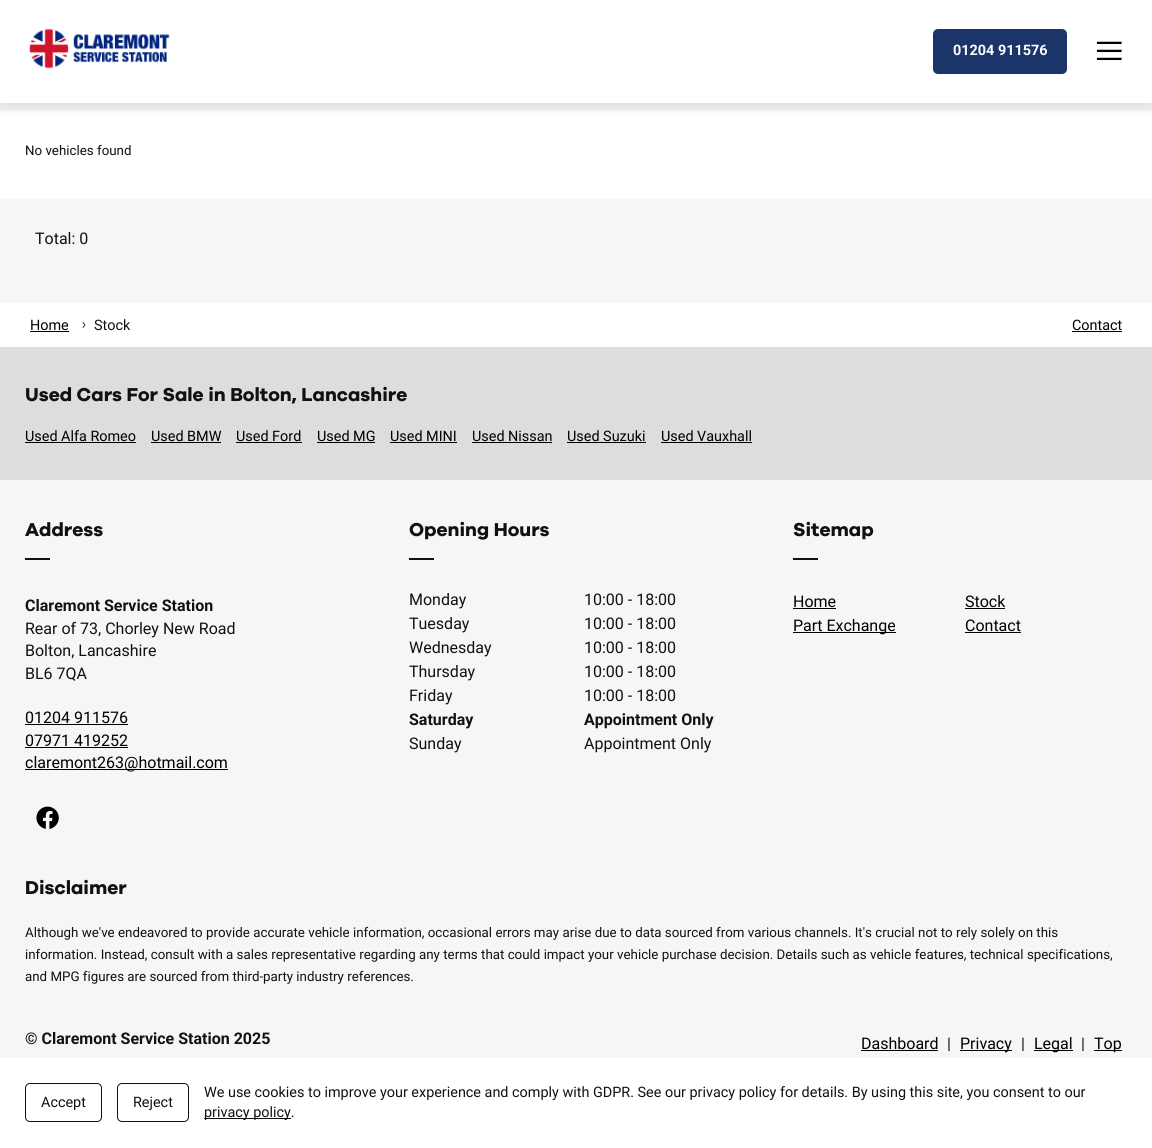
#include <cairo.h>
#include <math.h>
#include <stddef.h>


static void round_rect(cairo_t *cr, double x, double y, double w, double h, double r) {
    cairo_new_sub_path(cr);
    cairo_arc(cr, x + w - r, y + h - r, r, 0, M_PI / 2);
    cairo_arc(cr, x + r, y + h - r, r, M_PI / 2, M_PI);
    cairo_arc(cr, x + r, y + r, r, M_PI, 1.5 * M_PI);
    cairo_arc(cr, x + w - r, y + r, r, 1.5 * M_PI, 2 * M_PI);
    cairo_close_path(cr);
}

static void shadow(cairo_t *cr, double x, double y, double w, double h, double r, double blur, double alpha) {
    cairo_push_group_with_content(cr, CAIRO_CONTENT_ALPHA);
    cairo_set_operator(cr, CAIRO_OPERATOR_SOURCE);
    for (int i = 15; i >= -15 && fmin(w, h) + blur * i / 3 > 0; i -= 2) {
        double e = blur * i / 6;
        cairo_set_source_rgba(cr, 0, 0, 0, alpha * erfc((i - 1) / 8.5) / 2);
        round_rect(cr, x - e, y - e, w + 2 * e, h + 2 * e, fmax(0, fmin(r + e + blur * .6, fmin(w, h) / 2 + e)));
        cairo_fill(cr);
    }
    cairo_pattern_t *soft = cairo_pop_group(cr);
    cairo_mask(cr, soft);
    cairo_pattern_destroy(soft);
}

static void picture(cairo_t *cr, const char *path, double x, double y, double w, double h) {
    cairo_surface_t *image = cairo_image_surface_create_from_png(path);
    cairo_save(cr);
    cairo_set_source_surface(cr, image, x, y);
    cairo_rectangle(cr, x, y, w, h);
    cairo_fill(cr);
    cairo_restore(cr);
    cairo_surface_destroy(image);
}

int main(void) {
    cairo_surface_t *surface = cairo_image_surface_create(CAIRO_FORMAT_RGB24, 1152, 1148);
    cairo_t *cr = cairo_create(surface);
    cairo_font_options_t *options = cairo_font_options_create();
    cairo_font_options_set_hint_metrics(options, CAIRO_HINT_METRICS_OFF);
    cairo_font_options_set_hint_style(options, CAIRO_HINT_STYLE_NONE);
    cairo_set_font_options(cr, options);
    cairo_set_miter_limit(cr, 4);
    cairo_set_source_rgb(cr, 0.961, 0.961, 0.961);
    cairo_paint(cr);
    cairo_set_source_rgb(cr, 1, 1, 1);
    cairo_rectangle(cr, 0, 111, 1152, 88);
    cairo_fill(cr);
    cairo_set_source_rgb(cr, 0, 0, 0);
    shadow(cr, 0, 5, 1152, 103, 0, 5, 0.1);
    cairo_set_source_rgb(cr, 1, 1, 1);
    cairo_rectangle(cr, 0, 0, 1152, 103);
    cairo_fill(cr);
    picture(cr, "img1.png", 29, 28, 141, 41);
    cairo_set_source_rgb(cr, 0.106, 0.208, 0.42);
    round_rect(cr, 933, 29, 134, 45, 5);
    cairo_fill(cr);
    cairo_select_font_face(cr, "Roboto", CAIRO_FONT_SLANT_NORMAL, CAIRO_FONT_WEIGHT_BOLD);
    cairo_set_font_size(cr, 14.4);
    cairo_set_source_rgb(cr, 1, 1, 1);
    cairo_move_to(cr, 953, 55);
    cairo_show_text(cr, "01204 911576");
    picture(cr, "img2.png", 1096, 41, 26, 20);
    cairo_select_font_face(cr, "Roboto", CAIRO_FONT_SLANT_NORMAL, CAIRO_FONT_WEIGHT_NORMAL);
    cairo_set_font_size(cr, 13.33);
    cairo_set_source_rgb(cr, 0.067, 0.067, 0.067);
    cairo_move_to(cr, 25, 155);
    cairo_show_text(cr, "No vehicles found");
    cairo_set_font_size(cr, 16);
    cairo_move_to(cr, 35, 244);
    cairo_show_text(cr, "Total: 0");
    cairo_set_source_rgb(cr, 1, 1, 1);
    cairo_rectangle(cr, 0, 303, 1152, 44);
    cairo_fill(cr);
    cairo_set_font_size(cr, 14.4);
    cairo_set_source_rgb(cr, 0, 0, 0);
    cairo_move_to(cr, 30, 330);
    cairo_show_text(cr, "Home");
    cairo_rectangle(cr, 30, 331, 39, 1);
    cairo_fill(cr);
    cairo_new_path(cr);
    cairo_move_to(cr, 83, 327.5);
    cairo_line_to(cr, 85, 325);
    cairo_line_to(cr, 83, 322.5);
    cairo_set_source_rgb(cr, 0.067, 0.067, 0.067);
    cairo_set_line_width(cr, 0.8);
    cairo_set_line_cap(cr, CAIRO_LINE_CAP_ROUND);
    cairo_set_line_join(cr, CAIRO_LINE_JOIN_ROUND);
    cairo_stroke(cr);
    cairo_move_to(cr, 94, 330);
    cairo_show_text(cr, "Stock");
    cairo_set_source_rgb(cr, 0, 0, 0);
    cairo_move_to(cr, 1072, 330);
    cairo_show_text(cr, "Contact");
    cairo_rectangle(cr, 1072, 331, 50, 1);
    cairo_fill(cr);
    cairo_set_source_rgb(cr, 0.867, 0.867, 0.867);
    cairo_rectangle(cr, 0, 347, 1152, 133);
    cairo_fill(cr);
    cairo_select_font_face(cr, "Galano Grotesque", CAIRO_FONT_SLANT_NORMAL, CAIRO_FONT_WEIGHT_BOLD);
    cairo_set_font_size(cr, 19.25);
    cairo_set_source_rgb(cr, 0.067, 0.067, 0.067);
    cairo_move_to(cr, 25, 401);
    cairo_show_text(cr, "Used Cars For Sale in Bolton, Lancashire");
    cairo_select_font_face(cr, "Roboto", CAIRO_FONT_SLANT_NORMAL, CAIRO_FONT_WEIGHT_NORMAL);
    cairo_set_font_size(cr, 14.4);
    cairo_set_source_rgb(cr, 0, 0, 0);
    cairo_move_to(cr, 25, 441);
    cairo_show_text(cr, "Used Alfa Romeo");
    cairo_rectangle(cr, 25, 442, 111, 1);
    cairo_fill(cr);
    cairo_move_to(cr, 151, 441);
    cairo_show_text(cr, "Used BMW");
    cairo_rectangle(cr, 151, 442, 70, 1);
    cairo_fill(cr);
    cairo_move_to(cr, 236, 441);
    cairo_show_text(cr, "Used Ford");
    cairo_rectangle(cr, 236, 442, 66, 1);
    cairo_fill(cr);
    cairo_move_to(cr, 317, 441);
    cairo_show_text(cr, "Used MG");
    cairo_rectangle(cr, 317, 442, 58, 1);
    cairo_fill(cr);
    cairo_move_to(cr, 390, 441);
    cairo_show_text(cr, "Used MINI");
    cairo_rectangle(cr, 390, 442, 67, 1);
    cairo_fill(cr);
    cairo_move_to(cr, 472, 441);
    cairo_show_text(cr, "Used Nissan");
    cairo_rectangle(cr, 472, 442, 80, 1);
    cairo_fill(cr);
    cairo_move_to(cr, 567, 441);
    cairo_show_text(cr, "Used Suzuki");
    cairo_rectangle(cr, 567, 442, 79, 1);
    cairo_fill(cr);
    cairo_move_to(cr, 661, 441);
    cairo_show_text(cr, "Used Vauxhall");
    cairo_rectangle(cr, 661, 442, 91, 1);
    cairo_fill(cr);
    cairo_select_font_face(cr, "Galano Grotesque", CAIRO_FONT_SLANT_NORMAL, CAIRO_FONT_WEIGHT_BOLD);
    cairo_set_font_size(cr, 19.25);
    cairo_set_source_rgb(cr, 0.067, 0.067, 0.067);
    cairo_move_to(cr, 25, 536);
    cairo_show_text(cr, "Address");
    cairo_rectangle(cr, 25, 558, 25, 2);
    cairo_fill(cr);
    cairo_select_font_face(cr, "Roboto", CAIRO_FONT_SLANT_NORMAL, CAIRO_FONT_WEIGHT_BOLD);
    cairo_set_font_size(cr, 16);
    cairo_move_to(cr, 25, 611);
    cairo_show_text(cr, "Claremont Service Station");
    cairo_select_font_face(cr, "Roboto", CAIRO_FONT_SLANT_NORMAL, CAIRO_FONT_WEIGHT_NORMAL);
    cairo_move_to(cr, 25, 634);
    cairo_show_text(cr, "Rear of 73, Chorley New Road");
    cairo_move_to(cr, 25, 656);
    cairo_show_text(cr, "Bolton, Lancashire");
    cairo_move_to(cr, 25, 679);
    cairo_show_text(cr, "BL6 7QA");
    cairo_set_source_rgb(cr, 0, 0, 0);
    cairo_move_to(cr, 25, 723);
    cairo_show_text(cr, "01204 911576");
    cairo_rectangle(cr, 25, 724, 103, 1);
    cairo_fill(cr);
    cairo_move_to(cr, 25, 746);
    cairo_show_text(cr, "07971 419252");
    cairo_rectangle(cr, 25, 747, 103, 1);
    cairo_fill(cr);
    cairo_rectangle(cr, 25, 769, 203, 1);
    cairo_fill(cr);
    cairo_move_to(cr, 25, 768);
    cairo_show_text(cr, "claremont263@hotmail.com");
    picture(cr, "img3.png", 36, 806, 23, 23);
    cairo_select_font_face(cr, "Galano Grotesque", CAIRO_FONT_SLANT_NORMAL, CAIRO_FONT_WEIGHT_BOLD);
    cairo_set_font_size(cr, 19.25);
    cairo_set_source_rgb(cr, 0.067, 0.067, 0.067);
    cairo_move_to(cr, 409, 536);
    cairo_show_text(cr, "Opening Hours");
    cairo_rectangle(cr, 409, 558, 25, 2);
    cairo_fill(cr);
    cairo_select_font_face(cr, "Roboto", CAIRO_FONT_SLANT_NORMAL, CAIRO_FONT_WEIGHT_NORMAL);
    cairo_set_font_size(cr, 16);
    cairo_move_to(cr, 409, 605);
    cairo_show_text(cr, "Monday");
    cairo_move_to(cr, 584, 605);
    cairo_show_text(cr, "10:00 - 18:00");
    cairo_move_to(cr, 409, 629);
    cairo_show_text(cr, "Tuesday");
    cairo_move_to(cr, 584, 629);
    cairo_show_text(cr, "10:00 - 18:00");
    cairo_move_to(cr, 409, 653);
    cairo_show_text(cr, "Wednesday");
    cairo_move_to(cr, 584, 653);
    cairo_show_text(cr, "10:00 - 18:00");
    cairo_move_to(cr, 409, 677);
    cairo_show_text(cr, "Thursday");
    cairo_move_to(cr, 584, 677);
    cairo_show_text(cr, "10:00 - 18:00");
    cairo_move_to(cr, 409, 701);
    cairo_show_text(cr, "Friday");
    cairo_move_to(cr, 584, 701);
    cairo_show_text(cr, "10:00 - 18:00");
    cairo_select_font_face(cr, "Roboto", CAIRO_FONT_SLANT_NORMAL, CAIRO_FONT_WEIGHT_BOLD);
    cairo_move_to(cr, 409, 725);
    cairo_show_text(cr, "Saturday");
    cairo_move_to(cr, 584, 725);
    cairo_show_text(cr, "Appointment Only");
    cairo_select_font_face(cr, "Roboto", CAIRO_FONT_SLANT_NORMAL, CAIRO_FONT_WEIGHT_NORMAL);
    cairo_move_to(cr, 409, 749);
    cairo_show_text(cr, "Sunday");
    cairo_move_to(cr, 584, 749);
    cairo_show_text(cr, "Appointment Only");
    cairo_select_font_face(cr, "Galano Grotesque", CAIRO_FONT_SLANT_NORMAL, CAIRO_FONT_WEIGHT_BOLD);
    cairo_set_font_size(cr, 19.25);
    cairo_move_to(cr, 793, 536);
    cairo_show_text(cr, "Sitemap");
    cairo_rectangle(cr, 793, 558, 25, 2);
    cairo_fill(cr);
    cairo_select_font_face(cr, "Roboto", CAIRO_FONT_SLANT_NORMAL, CAIRO_FONT_WEIGHT_NORMAL);
    cairo_set_font_size(cr, 16);
    cairo_set_source_rgb(cr, 0, 0, 0);
    cairo_move_to(cr, 793, 607);
    cairo_show_text(cr, "Home");
    cairo_rectangle(cr, 793, 608, 43, 1);
    cairo_fill(cr);
    cairo_move_to(cr, 965, 607);
    cairo_show_text(cr, "Stock");
    cairo_rectangle(cr, 965, 608, 40, 1);
    cairo_fill(cr);
    cairo_rectangle(cr, 793, 632, 103, 1);
    cairo_fill(cr);
    cairo_move_to(cr, 793, 631);
    cairo_show_text(cr, "Part Exchange");
    cairo_move_to(cr, 965, 631);
    cairo_show_text(cr, "Contact");
    cairo_rectangle(cr, 965, 632, 56, 1);
    cairo_fill(cr);
    cairo_select_font_face(cr, "Galano Grotesque", CAIRO_FONT_SLANT_NORMAL, CAIRO_FONT_WEIGHT_BOLD);
    cairo_set_font_size(cr, 19.25);
    cairo_set_source_rgb(cr, 0.067, 0.067, 0.067);
    cairo_move_to(cr, 25, 894);
    cairo_show_text(cr, "Disclaimer");
    cairo_select_font_face(cr, "Roboto", CAIRO_FONT_SLANT_NORMAL, CAIRO_FONT_WEIGHT_NORMAL);
    cairo_set_font_size(cr, 13.33);
    cairo_move_to(cr, 25, 937);
    cairo_show_text(cr, "Although we've endeavored to provide accurate vehicle information, occasional errors may arise due to data sourced from various channels. It's crucial not to rely solely on this");
    cairo_move_to(cr, 25, 959);
    cairo_show_text(cr, "information. Instead, consult with a sales representative regarding any terms that could impact your vehicle purchase decision. Details such as vehicle features, technical specifications,");
    cairo_move_to(cr, 25, 981);
    cairo_show_text(cr, "and MPG figures are sourced from third-party industry references.");
    cairo_select_font_face(cr, "Roboto", CAIRO_FONT_SLANT_NORMAL, CAIRO_FONT_WEIGHT_BOLD);
    cairo_set_font_size(cr, 16);
    cairo_move_to(cr, 25, 1044);
    cairo_show_text(cr, "© Claremont Service Station 2025");
    cairo_select_font_face(cr, "Roboto", CAIRO_FONT_SLANT_NORMAL, CAIRO_FONT_WEIGHT_NORMAL);
    cairo_set_source_rgb(cr, 0, 0, 0);
    cairo_move_to(cr, 861, 1049);
    cairo_show_text(cr, "Dashboard");
    cairo_rectangle(cr, 861, 1050, 77, 1);
    cairo_fill(cr);
    cairo_set_source_rgb(cr, 0.067, 0.067, 0.067);
    cairo_move_to(cr, 947, 1049);
    cairo_show_text(cr, "|");
    cairo_set_source_rgb(cr, 0, 0, 0);
    cairo_rectangle(cr, 960, 1050, 52, 1);
    cairo_fill(cr);
    cairo_move_to(cr, 960, 1049);
    cairo_show_text(cr, "Privacy");
    cairo_set_source_rgb(cr, 0.067, 0.067, 0.067);
    cairo_move_to(cr, 1021, 1049);
    cairo_show_text(cr, "|");
    cairo_set_source_rgb(cr, 0, 0, 0);
    cairo_rectangle(cr, 1034, 1050, 39, 1);
    cairo_fill(cr);
    cairo_move_to(cr, 1034, 1049);
    cairo_show_text(cr, "Legal");
    cairo_set_source_rgb(cr, 0.067, 0.067, 0.067);
    cairo_move_to(cr, 1081, 1049);
    cairo_show_text(cr, "|");
    cairo_set_source_rgb(cr, 0, 0, 0);
    cairo_rectangle(cr, 1094, 1050, 28, 1);
    cairo_fill(cr);
    cairo_move_to(cr, 1094, 1049);
    cairo_show_text(cr, "Top");
    cairo_set_source_rgb(cr, 1, 1, 1);
    cairo_rectangle(cr, 0, 1058, 1152, 90);
    cairo_fill(cr);
    round_rect(cr, 25.5, 1083.5, 76, 38, 4.5);
    cairo_set_source_rgb(cr, 0.067, 0.067, 0.067);
    cairo_set_line_width(cr, 1);
    cairo_set_line_cap(cr, CAIRO_LINE_CAP_BUTT);
    cairo_set_line_join(cr, CAIRO_LINE_JOIN_MITER);
    cairo_stroke(cr);
    cairo_set_font_size(cr, 14.4);
    cairo_move_to(cr, 41, 1107);
    cairo_show_text(cr, "Accept");
    round_rect(cr, 117.5, 1083.5, 71, 38, 4.5);
    cairo_stroke(cr);
    cairo_move_to(cr, 133, 1107);
    cairo_show_text(cr, "Reject");
    cairo_move_to(cr, 204, 1097);
    cairo_show_text(cr, "We use cookies to improve your experience and comply with GDPR. See our privacy policy for details. By using this site, you consent to our");
    cairo_rectangle(cr, 204, 1118, 87, 1);
    cairo_fill(cr);
    cairo_move_to(cr, 204, 1117);
    cairo_show_text(cr, "privacy policy.");
    cairo_surface_write_to_png(surface, "page.png");
    cairo_font_options_destroy(options);
    cairo_destroy(cr);
    cairo_surface_destroy(surface);
    return 0;
}
